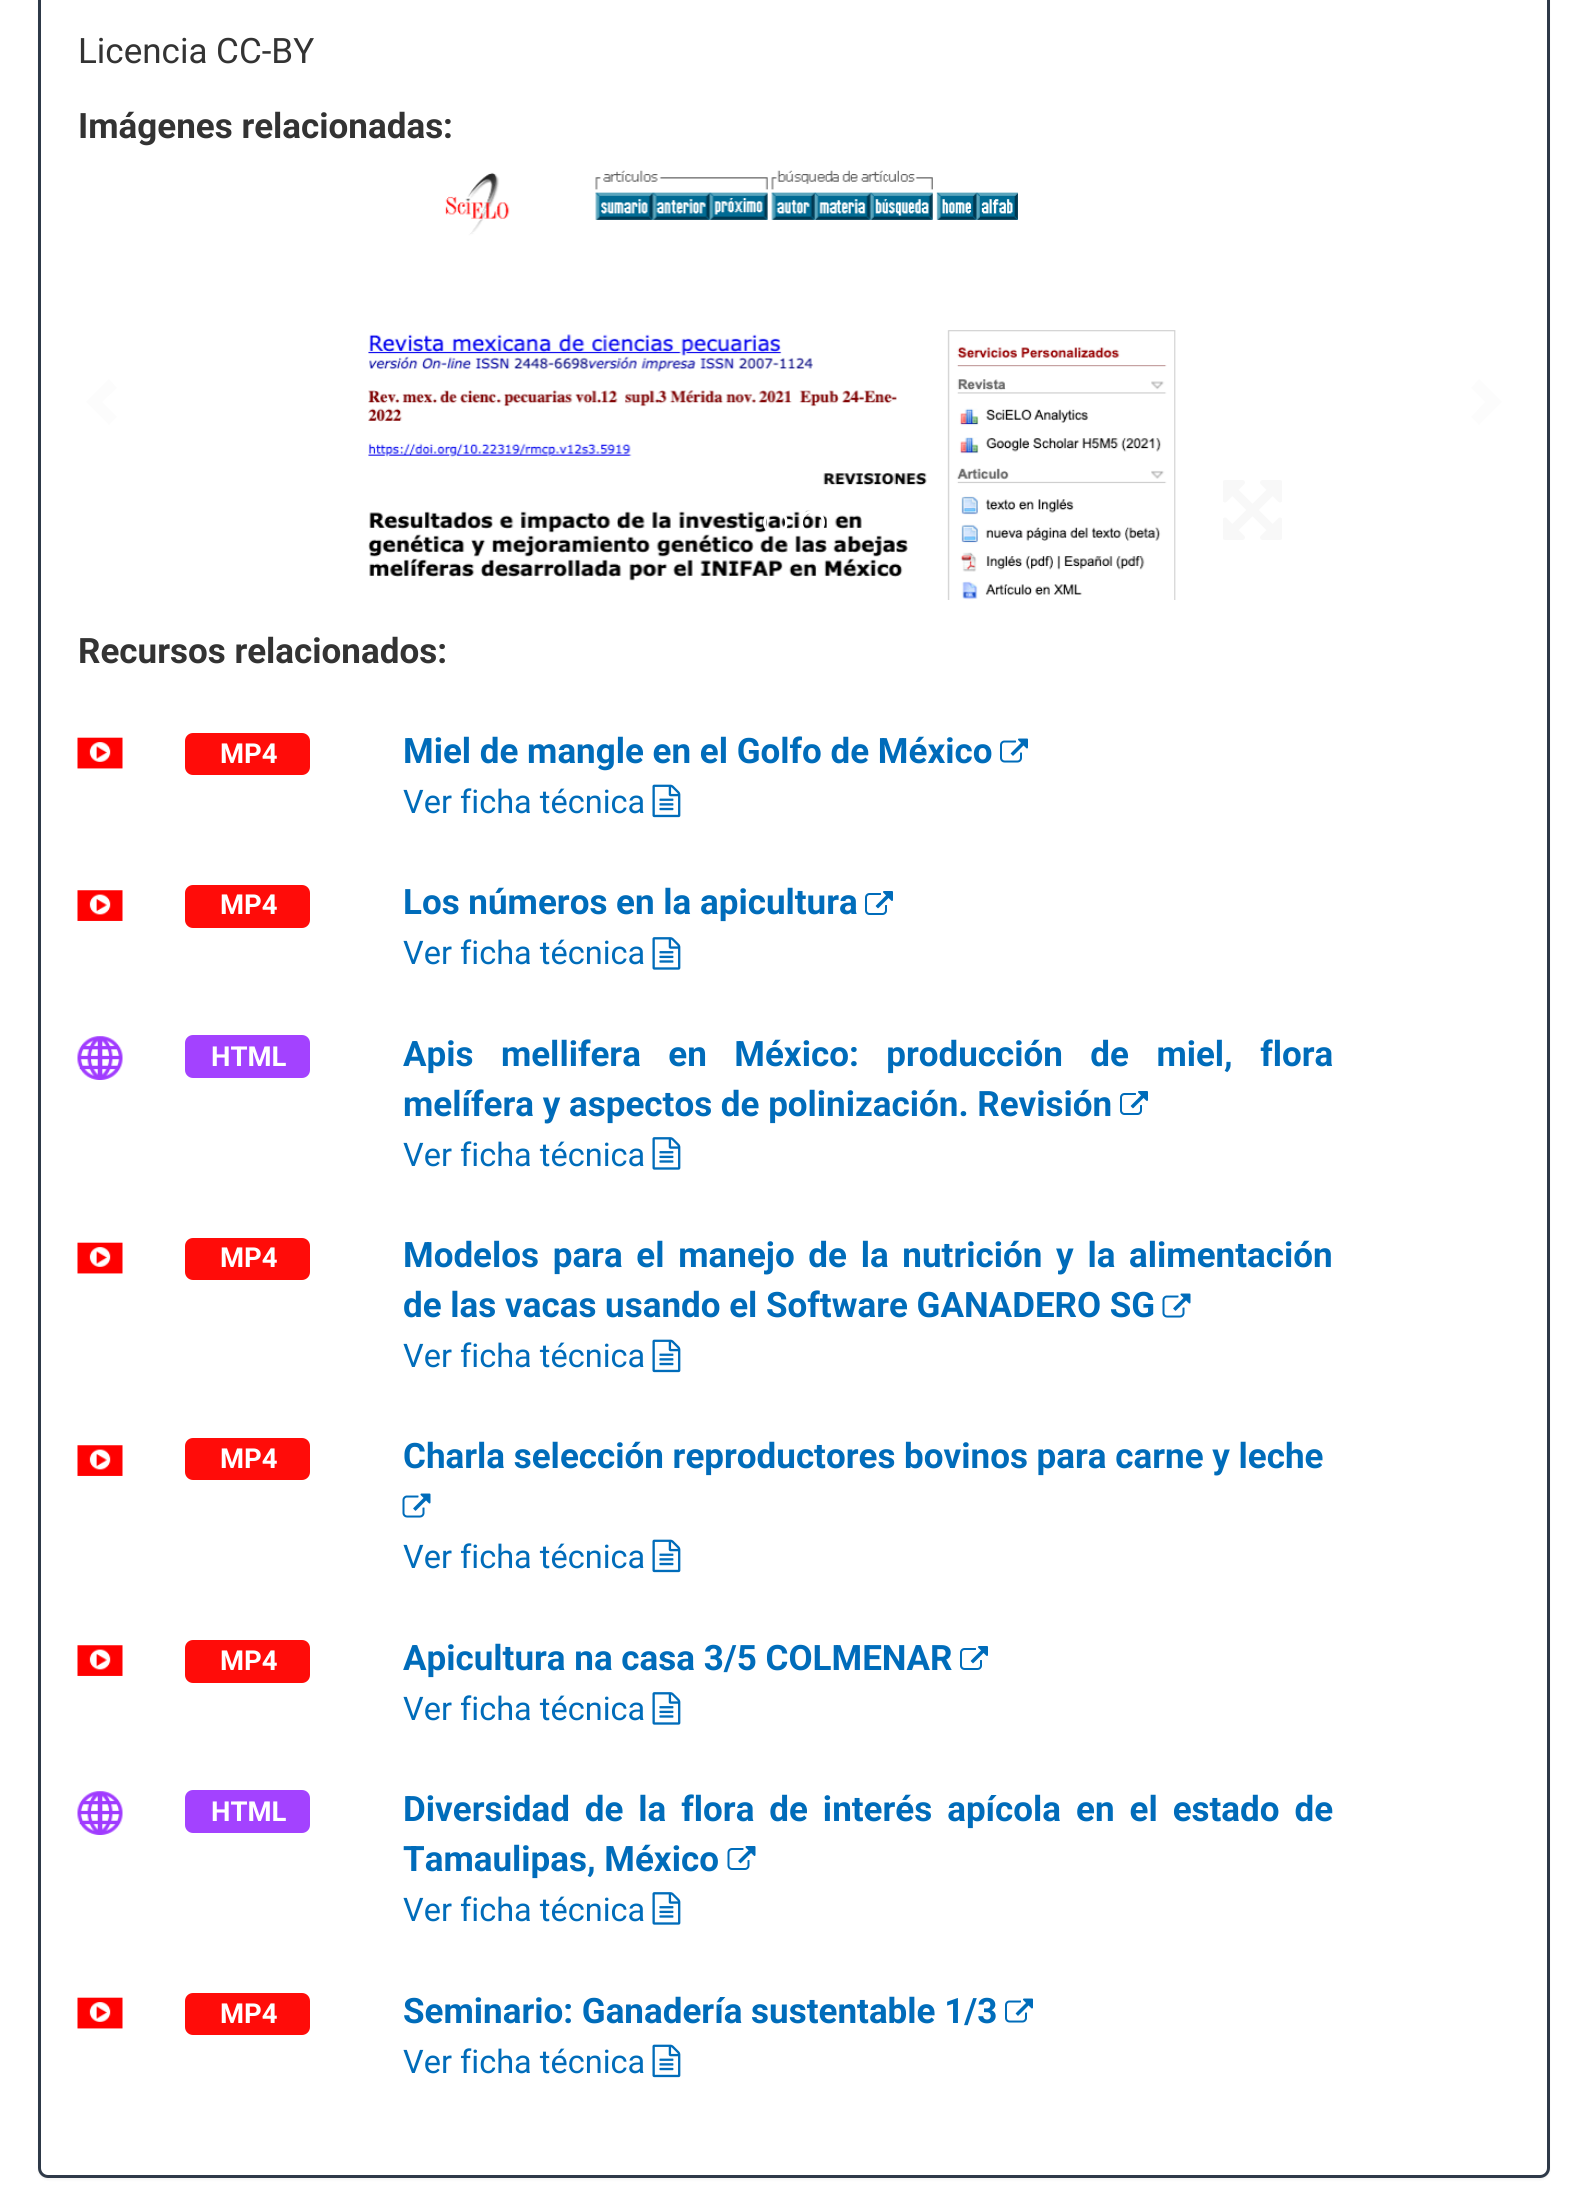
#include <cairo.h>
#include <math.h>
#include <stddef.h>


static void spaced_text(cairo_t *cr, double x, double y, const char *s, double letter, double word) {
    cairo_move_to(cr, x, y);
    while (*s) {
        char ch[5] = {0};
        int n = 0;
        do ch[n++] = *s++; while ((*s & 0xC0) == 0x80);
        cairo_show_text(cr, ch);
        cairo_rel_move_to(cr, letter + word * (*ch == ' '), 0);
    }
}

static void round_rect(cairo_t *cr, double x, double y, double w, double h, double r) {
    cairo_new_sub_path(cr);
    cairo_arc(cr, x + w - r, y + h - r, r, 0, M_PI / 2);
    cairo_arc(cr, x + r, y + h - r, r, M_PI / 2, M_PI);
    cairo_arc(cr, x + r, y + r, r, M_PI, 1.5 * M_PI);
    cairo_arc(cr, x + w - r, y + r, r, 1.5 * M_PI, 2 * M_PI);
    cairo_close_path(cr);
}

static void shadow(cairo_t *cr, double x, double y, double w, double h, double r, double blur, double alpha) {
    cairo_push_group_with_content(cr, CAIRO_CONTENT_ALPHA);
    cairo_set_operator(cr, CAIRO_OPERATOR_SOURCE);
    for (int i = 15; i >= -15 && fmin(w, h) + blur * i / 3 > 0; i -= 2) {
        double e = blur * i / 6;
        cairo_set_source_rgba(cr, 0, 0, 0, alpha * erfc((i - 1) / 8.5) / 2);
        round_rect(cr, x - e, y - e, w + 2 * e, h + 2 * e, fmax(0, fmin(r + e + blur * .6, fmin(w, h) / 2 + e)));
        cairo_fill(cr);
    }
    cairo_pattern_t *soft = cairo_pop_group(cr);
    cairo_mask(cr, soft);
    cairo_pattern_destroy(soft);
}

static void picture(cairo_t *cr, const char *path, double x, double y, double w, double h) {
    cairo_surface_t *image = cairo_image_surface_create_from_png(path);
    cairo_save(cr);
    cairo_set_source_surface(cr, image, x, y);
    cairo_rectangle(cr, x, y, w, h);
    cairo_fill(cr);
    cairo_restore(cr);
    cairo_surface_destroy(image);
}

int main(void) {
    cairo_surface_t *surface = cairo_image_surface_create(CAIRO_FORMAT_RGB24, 1587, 2205);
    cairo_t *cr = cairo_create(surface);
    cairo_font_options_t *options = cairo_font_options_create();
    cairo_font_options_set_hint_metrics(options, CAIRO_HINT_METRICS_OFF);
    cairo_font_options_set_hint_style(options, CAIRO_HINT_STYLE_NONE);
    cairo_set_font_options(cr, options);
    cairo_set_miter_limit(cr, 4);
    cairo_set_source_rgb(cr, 1, 1, 1);
    cairo_paint(cr);
    cairo_set_source_rgb(cr, 0, 0, 0);
    shadow(cr, 38, -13, 1512, 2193, 10, 1, 0.05);
    cairo_set_source_rgb(cr, 1, 1, 1);
    round_rect(cr, 39.5, -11.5, 1509, 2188, 8.5);
    cairo_fill_preserve(cr);
    cairo_set_source_rgb(cr, 0.18, 0.224, 0.282);
    cairo_set_line_width(cr, 3);
    cairo_stroke(cr);
    cairo_select_font_face(cr, "Roboto", CAIRO_FONT_SLANT_NORMAL, CAIRO_FONT_WEIGHT_NORMAL);
    cairo_set_font_size(cr, 35);
    cairo_set_source_rgb(cr, 0.2, 0.2, 0.2);
    cairo_move_to(cr, 78, 63);
    cairo_show_text(cr, "Licencia CC-BY");
    cairo_select_font_face(cr, "Roboto", CAIRO_FONT_SLANT_NORMAL, CAIRO_FONT_WEIGHT_BOLD);
    cairo_move_to(cr, 78, 138);
    cairo_show_text(cr, "Imágenes relacionadas:");
    cairo_set_source_rgb(cr, 0.988, 0.988, 0.988);
    cairo_new_path(cr);
    cairo_move_to(cr, 117, 388);
    cairo_line_to(cr, 102, 402);
    cairo_line_to(cr, 117, 417);
    cairo_line_to(cr, 109, 425);
    cairo_line_to(cr, 86, 402);
    cairo_line_to(cr, 109, 379);
    cairo_close_path(cr);
    cairo_fill(cr);
    picture(cr, "img1.png", 368, 170, 808, 430);
    cairo_new_path(cr);
    cairo_move_to(cr, 1502, 402);
    cairo_line_to(cr, 1479, 425);
    cairo_line_to(cr, 1471, 417);
    cairo_line_to(cr, 1485, 402);
    cairo_line_to(cr, 1471, 388);
    cairo_line_to(cr, 1479, 379);
    cairo_close_path(cr);
    cairo_fill(cr);
    cairo_arc(cr, 775.5, 522.5, 11, 0, 2 * M_PI);
    cairo_set_source_rgb(cr, 1, 1, 1);
    cairo_stroke(cr);
    cairo_arc(cr, 812.5, 522.5, 11, 0, 2 * M_PI);
    cairo_stroke(cr);
    picture(cr, "img2.png", 1223, 480, 59, 60);
    cairo_set_source_rgb(cr, 0.2, 0.2, 0.2);
    cairo_move_to(cr, 78, 663);
    cairo_show_text(cr, "Recursos relacionados:");
    picture(cr, "img3.png", 77, 737, 46, 32);
    cairo_set_source_rgb(cr, 1, 0.047, 0.039);
    round_rect(cr, 185, 733, 125, 42, 8);
    cairo_fill(cr);
    cairo_set_font_size(cr, 27.5);
    cairo_set_source_rgb(cr, 1, 1, 1);
    cairo_move_to(cr, 220, 763);
    cairo_show_text(cr, "MP4");
    cairo_set_font_size(cr, 35);
    cairo_set_source_rgb(cr, 0, 0.424, 0.729);
    cairo_move_to(cr, 403, 763);
    cairo_show_text(cr, "Miel de mangle en el Golfo de México");
    picture(cr, "img4.png", 1000, 738, 28, 25);
    cairo_select_font_face(cr, "Roboto", CAIRO_FONT_SLANT_NORMAL, CAIRO_FONT_WEIGHT_NORMAL);
    cairo_set_font_size(cr, 32.5);
    cairo_move_to(cr, 403, 813);
    cairo_show_text(cr, "Ver ficha técnica");
    picture(cr, "img5.png", 652, 784, 29, 34);
    picture(cr, "img6.png", 77, 890, 46, 31);
    cairo_set_source_rgb(cr, 1, 0.047, 0.039);
    round_rect(cr, 185, 885, 125, 43, 8);
    cairo_fill(cr);
    cairo_select_font_face(cr, "Roboto", CAIRO_FONT_SLANT_NORMAL, CAIRO_FONT_WEIGHT_BOLD);
    cairo_set_font_size(cr, 27.5);
    cairo_set_source_rgb(cr, 1, 1, 1);
    cairo_move_to(cr, 220, 914);
    cairo_show_text(cr, "MP4");
    cairo_set_font_size(cr, 35);
    cairo_set_source_rgb(cr, 0, 0.424, 0.729);
    cairo_move_to(cr, 403, 914);
    cairo_show_text(cr, "Los números en la apicultura");
    picture(cr, "img7.png", 865, 891, 28, 24);
    cairo_select_font_face(cr, "Roboto", CAIRO_FONT_SLANT_NORMAL, CAIRO_FONT_WEIGHT_NORMAL);
    cairo_set_font_size(cr, 32.5);
    cairo_move_to(cr, 403, 964);
    cairo_show_text(cr, "Ver ficha técnica");
    picture(cr, "img8.png", 652, 937, 29, 33);
    picture(cr, "img9.png", 77, 1036, 46, 44);
    cairo_set_source_rgb(cr, 0.639, 0.259, 1);
    round_rect(cr, 185, 1035, 125, 43, 8);
    cairo_fill(cr);
    cairo_select_font_face(cr, "Roboto", CAIRO_FONT_SLANT_NORMAL, CAIRO_FONT_WEIGHT_BOLD);
    cairo_set_font_size(cr, 27.5);
    cairo_set_source_rgb(cr, 1, 1, 1);
    cairo_move_to(cr, 211, 1066);
    cairo_show_text(cr, "HTML");
    cairo_set_font_size(cr, 35);
    cairo_set_source_rgb(cr, 0, 0.424, 0.729);
    spaced_text(cr, 403, 1066, "Apis mellifera en México: producción de miel, flora", 0, 18.75);
    cairo_move_to(cr, 403, 1116);
    cairo_show_text(cr, "melífera y aspectos de polinización. Revisión");
    picture(cr, "img7.png", 1120, 1091, 28, 24);
    cairo_select_font_face(cr, "Roboto", CAIRO_FONT_SLANT_NORMAL, CAIRO_FONT_WEIGHT_NORMAL);
    cairo_set_font_size(cr, 32.5);
    cairo_move_to(cr, 403, 1166);
    cairo_show_text(cr, "Ver ficha técnica");
    picture(cr, "img8.png", 652, 1137, 29, 33);
    picture(cr, "img3.png", 77, 1242, 46, 32);
    cairo_set_source_rgb(cr, 1, 0.047, 0.039);
    round_rect(cr, 185, 1238, 125, 42, 8);
    cairo_fill(cr);
    cairo_select_font_face(cr, "Roboto", CAIRO_FONT_SLANT_NORMAL, CAIRO_FONT_WEIGHT_BOLD);
    cairo_set_font_size(cr, 27.5);
    cairo_set_source_rgb(cr, 1, 1, 1);
    cairo_move_to(cr, 220, 1267);
    cairo_show_text(cr, "MP4");
    cairo_set_font_size(cr, 35);
    cairo_set_source_rgb(cr, 0, 0.424, 0.729);
    spaced_text(cr, 403, 1267, "Modelos para el manejo de la nutrición y la alimentación", 0, 5);
    cairo_move_to(cr, 403, 1317);
    cairo_show_text(cr, "de las vacas usando el Software GANADERO SG");
    picture(cr, "img10.png", 1162, 1293, 29, 25);
    cairo_select_font_face(cr, "Roboto", CAIRO_FONT_SLANT_NORMAL, CAIRO_FONT_WEIGHT_NORMAL);
    cairo_set_font_size(cr, 32.5);
    cairo_move_to(cr, 403, 1367);
    cairo_show_text(cr, "Ver ficha técnica");
    picture(cr, "img5.png", 652, 1339, 29, 34);
    picture(cr, "img6.png", 77, 1445, 46, 31);
    cairo_set_source_rgb(cr, 1, 0.047, 0.039);
    round_rect(cr, 185, 1438, 125, 42, 8);
    cairo_fill(cr);
    cairo_select_font_face(cr, "Roboto", CAIRO_FONT_SLANT_NORMAL, CAIRO_FONT_WEIGHT_BOLD);
    cairo_set_font_size(cr, 27.5);
    cairo_set_source_rgb(cr, 1, 1, 1);
    cairo_move_to(cr, 220, 1468);
    cairo_show_text(cr, "MP4");
    cairo_set_font_size(cr, 35);
    cairo_set_source_rgb(cr, 0, 0.424, 0.729);
    cairo_move_to(cr, 403, 1468);
    cairo_show_text(cr, "Charla selección reproductores bovinos para carne y leche");
    picture(cr, "img10.png", 402, 1493, 29, 25);
    cairo_select_font_face(cr, "Roboto", CAIRO_FONT_SLANT_NORMAL, CAIRO_FONT_WEIGHT_NORMAL);
    cairo_set_font_size(cr, 32.5);
    cairo_move_to(cr, 403, 1568);
    cairo_show_text(cr, "Ver ficha técnica");
    picture(cr, "img5.png", 652, 1539, 29, 34);
    picture(cr, "img6.png", 77, 1645, 46, 31);
    cairo_set_source_rgb(cr, 1, 0.047, 0.039);
    round_rect(cr, 185, 1640, 125, 43, 8);
    cairo_fill(cr);
    cairo_select_font_face(cr, "Roboto", CAIRO_FONT_SLANT_NORMAL, CAIRO_FONT_WEIGHT_BOLD);
    cairo_set_font_size(cr, 27.5);
    cairo_set_source_rgb(cr, 1, 1, 1);
    cairo_move_to(cr, 220, 1670);
    cairo_show_text(cr, "MP4");
    cairo_set_font_size(cr, 35);
    cairo_set_source_rgb(cr, 0, 0.424, 0.729);
    cairo_move_to(cr, 403, 1670);
    cairo_show_text(cr, "Apicultura na casa 3/5 COLMENAR");
    picture(cr, "img7.png", 960, 1646, 28, 24);
    cairo_select_font_face(cr, "Roboto", CAIRO_FONT_SLANT_NORMAL, CAIRO_FONT_WEIGHT_NORMAL);
    cairo_set_font_size(cr, 32.5);
    cairo_move_to(cr, 403, 1720);
    cairo_show_text(cr, "Ver ficha técnica");
    picture(cr, "img8.png", 652, 1692, 29, 33);
    picture(cr, "img9.png", 77, 1791, 46, 44);
    cairo_set_source_rgb(cr, 0.639, 0.259, 1);
    round_rect(cr, 185, 1790, 125, 43, 8);
    cairo_fill(cr);
    cairo_select_font_face(cr, "Roboto", CAIRO_FONT_SLANT_NORMAL, CAIRO_FONT_WEIGHT_BOLD);
    cairo_set_font_size(cr, 27.5);
    cairo_set_source_rgb(cr, 1, 1, 1);
    cairo_move_to(cr, 211, 1821);
    cairo_show_text(cr, "HTML");
    cairo_set_font_size(cr, 35);
    cairo_set_source_rgb(cr, 0, 0.424, 0.729);
    spaced_text(cr, 403, 1821, "Diversidad de la flora de interés apícola en el estado de", 0, 6.25);
    cairo_move_to(cr, 403, 1871);
    cairo_show_text(cr, "Tamaulipas, México");
    picture(cr, "img11.png", 727, 1846, 29, 24);
    cairo_select_font_face(cr, "Roboto", CAIRO_FONT_SLANT_NORMAL, CAIRO_FONT_WEIGHT_NORMAL);
    cairo_set_font_size(cr, 32.5);
    cairo_move_to(cr, 403, 1921);
    cairo_show_text(cr, "Ver ficha técnica");
    picture(cr, "img8.png", 652, 1892, 29, 33);
    picture(cr, "img3.png", 77, 1997, 46, 32);
    cairo_set_source_rgb(cr, 1, 0.047, 0.039);
    round_rect(cr, 185, 1993, 125, 42, 8);
    cairo_fill(cr);
    cairo_select_font_face(cr, "Roboto", CAIRO_FONT_SLANT_NORMAL, CAIRO_FONT_WEIGHT_BOLD);
    cairo_set_font_size(cr, 27.5);
    cairo_set_source_rgb(cr, 1, 1, 1);
    cairo_move_to(cr, 220, 2023);
    cairo_show_text(cr, "MP4");
    cairo_set_font_size(cr, 35);
    cairo_set_source_rgb(cr, 0, 0.424, 0.729);
    cairo_move_to(cr, 403, 2023);
    cairo_show_text(cr, "Seminario: Ganadería sustentable 1/3");
    picture(cr, "img4.png", 1005, 1998, 28, 25);
    cairo_select_font_face(cr, "Roboto", CAIRO_FONT_SLANT_NORMAL, CAIRO_FONT_WEIGHT_NORMAL);
    cairo_set_font_size(cr, 32.5);
    cairo_move_to(cr, 403, 2073);
    cairo_show_text(cr, "Ver ficha técnica");
    picture(cr, "img5.png", 652, 2044, 29, 34);
    cairo_surface_write_to_png(surface, "page.png");
    cairo_font_options_destroy(options);
    cairo_destroy(cr);
    cairo_surface_destroy(surface);
    return 0;
}
